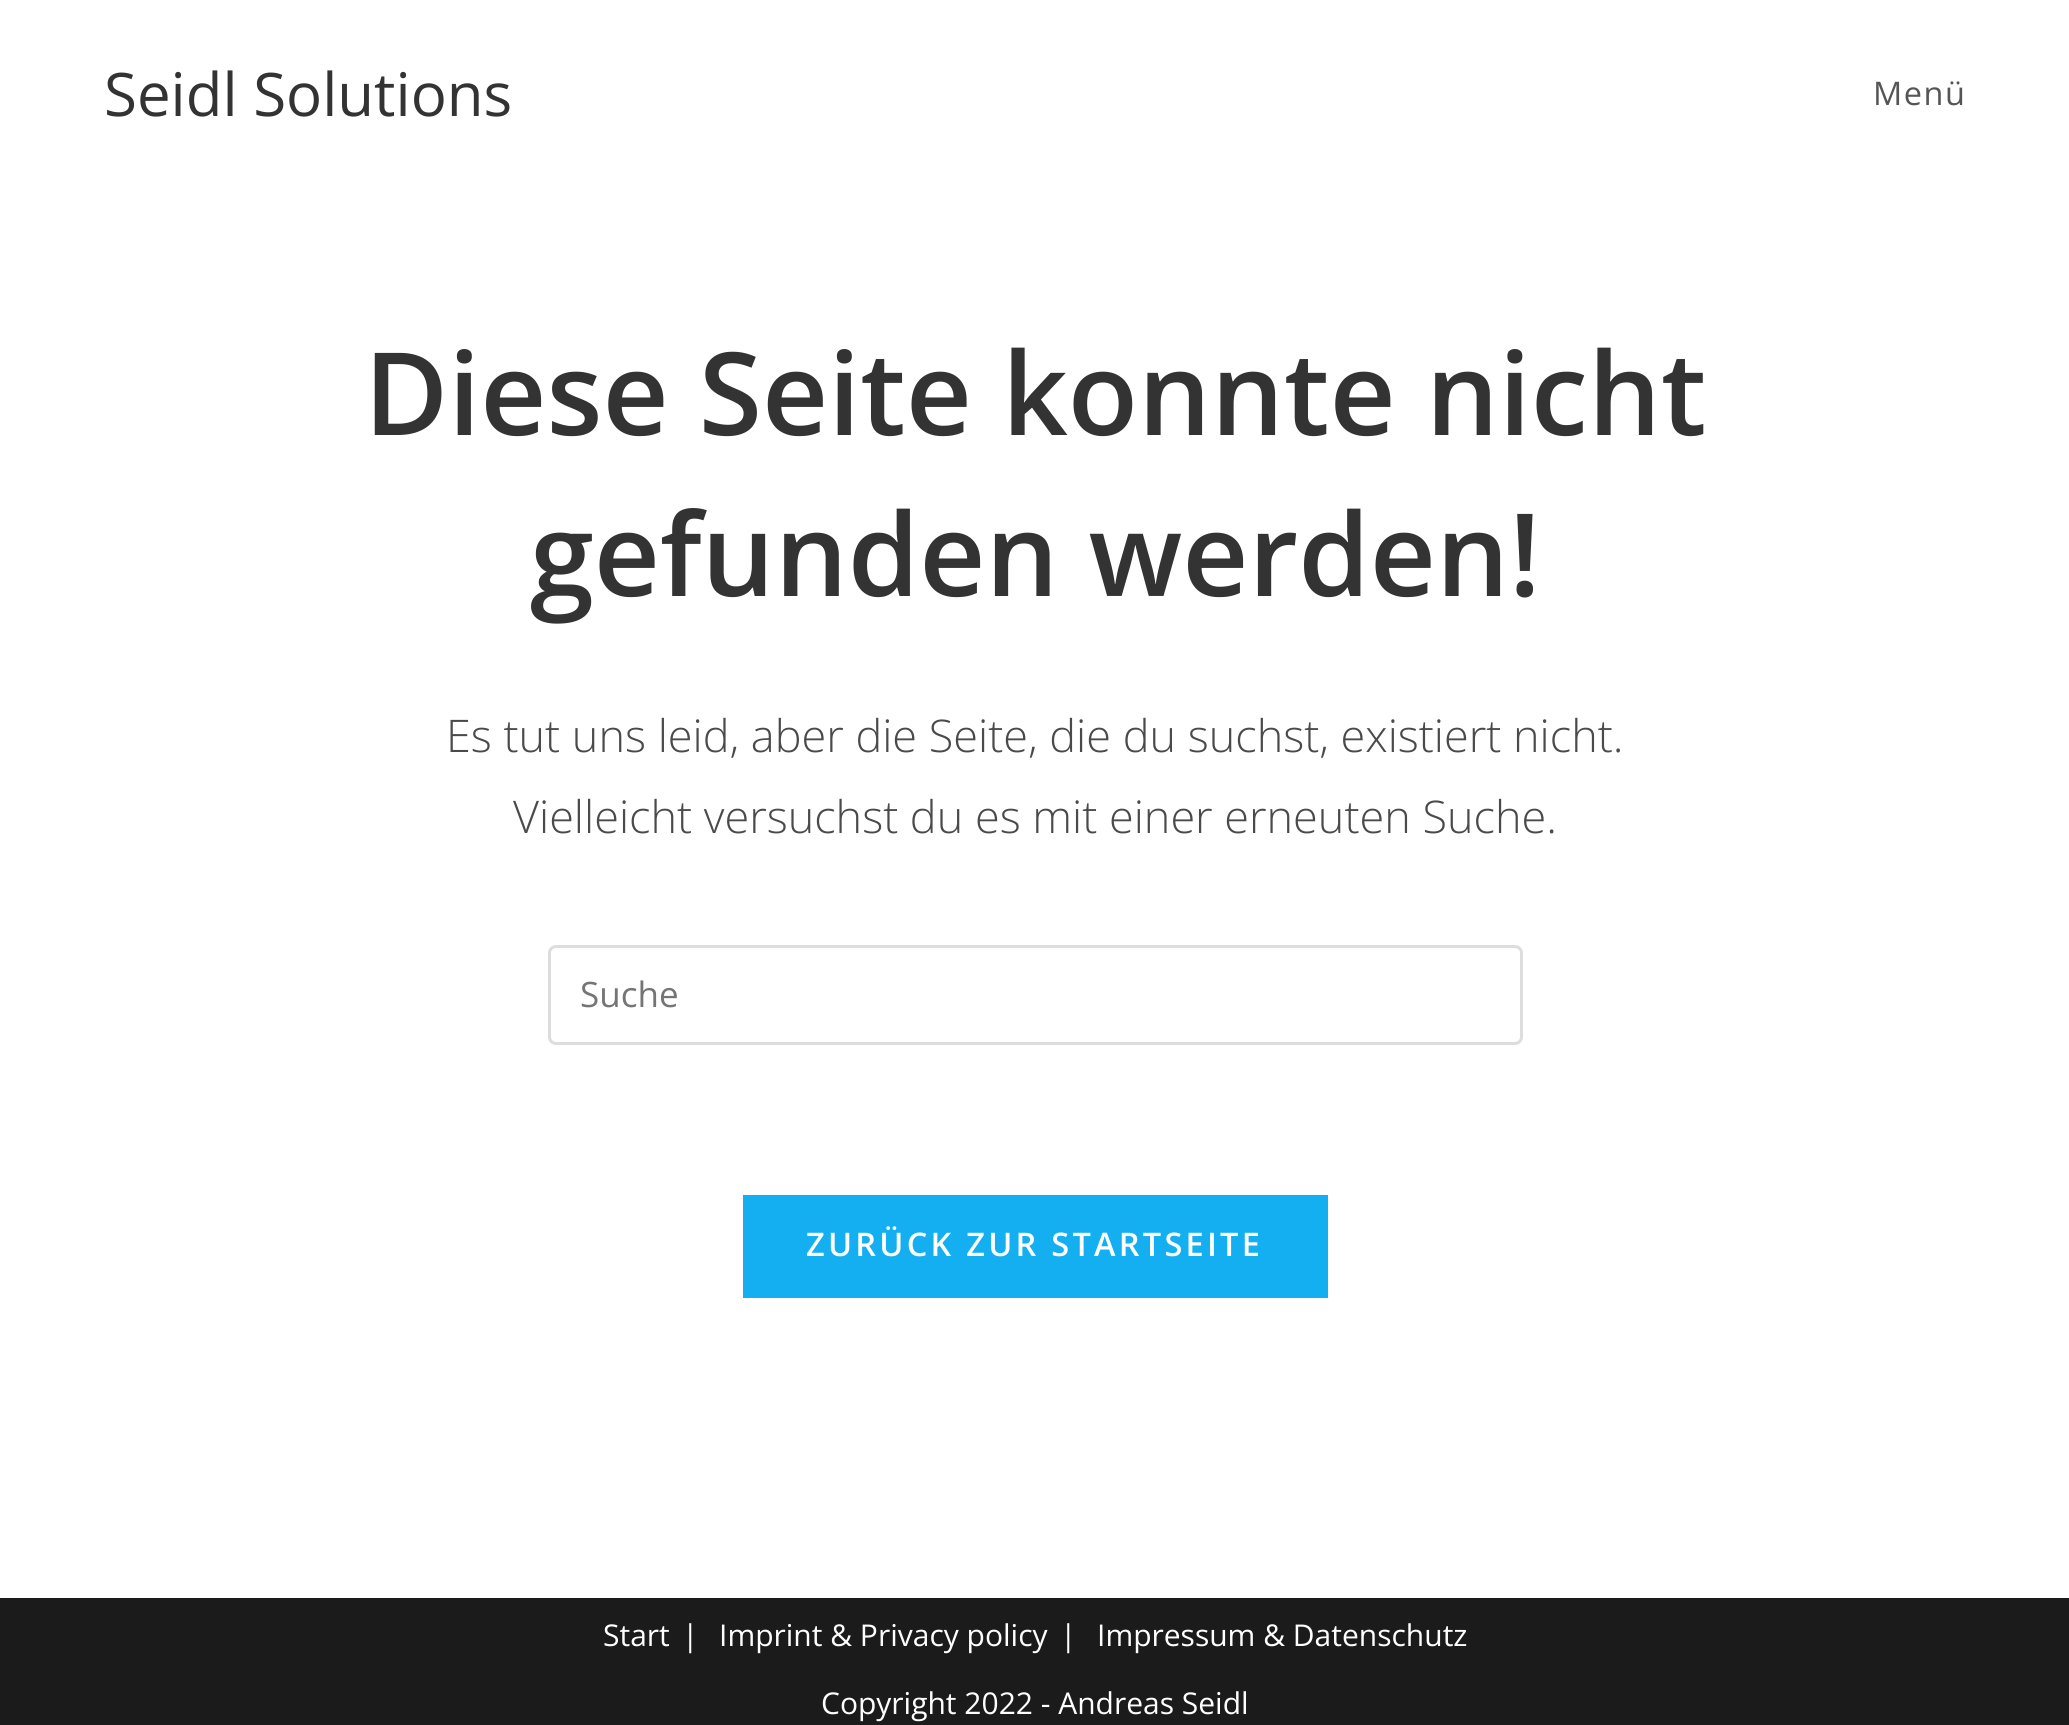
#include <cairo.h>
#include <math.h>
#include <stddef.h>


static void spaced_text(cairo_t *cr, double x, double y, const char *s, double letter, double word) {
    cairo_move_to(cr, x, y);
    while (*s) {
        char ch[5] = {0};
        int n = 0;
        do ch[n++] = *s++; while ((*s & 0xC0) == 0x80);
        cairo_show_text(cr, ch);
        cairo_rel_move_to(cr, letter + word * (*ch == ' '), 0);
    }
}

static void round_rect(cairo_t *cr, double x, double y, double w, double h, double r) {
    cairo_new_sub_path(cr);
    cairo_arc(cr, x + w - r, y + h - r, r, 0, M_PI / 2);
    cairo_arc(cr, x + r, y + h - r, r, M_PI / 2, M_PI);
    cairo_arc(cr, x + r, y + r, r, M_PI, 1.5 * M_PI);
    cairo_arc(cr, x + w - r, y + r, r, 1.5 * M_PI, 2 * M_PI);
    cairo_close_path(cr);
}

int main(void) {
    cairo_surface_t *surface = cairo_image_surface_create(CAIRO_FORMAT_RGB24, 2069, 1725);
    cairo_t *cr = cairo_create(surface);
    cairo_font_options_t *options = cairo_font_options_create();
    cairo_font_options_set_hint_metrics(options, CAIRO_HINT_METRICS_OFF);
    cairo_font_options_set_hint_style(options, CAIRO_HINT_STYLE_NONE);
    cairo_set_font_options(cr, options);
    cairo_set_miter_limit(cr, 4);
    cairo_set_source_rgb(cr, 1, 1, 1);
    cairo_paint(cr);
    cairo_select_font_face(cr, "Open Sans", CAIRO_FONT_SLANT_NORMAL, CAIRO_FONT_WEIGHT_NORMAL);
    cairo_set_font_size(cr, 60);
    cairo_set_source_rgb(cr, 0.2, 0.2, 0.2);
    cairo_move_to(cr, 104, 116);
    cairo_show_text(cr, "Seidl Solutions");
    cairo_set_font_size(cr, 32.5);
    cairo_set_source_rgb(cr, 0.333, 0.333, 0.333);
    spaced_text(cr, 1873, 105, "Menü", 1.5, 0);
    cairo_select_font_face(cr, "Open Sans SemiBold", CAIRO_FONT_SLANT_NORMAL, CAIRO_FONT_WEIGHT_NORMAL);
    cairo_set_font_size(cr, 115);
    cairo_set_source_rgb(cr, 0.2, 0.2, 0.2);
    cairo_move_to(cr, 364, 435);
    cairo_show_text(cr, "Diese Seite konnte nicht");
    cairo_move_to(cr, 530, 596);
    cairo_show_text(cr, "gefunden werden!");
    cairo_select_font_face(cr, "Open Sans Light", CAIRO_FONT_SLANT_NORMAL, CAIRO_FONT_WEIGHT_NORMAL);
    cairo_set_font_size(cr, 45);
    cairo_set_source_rgb(cr, 0.29, 0.29, 0.29);
    cairo_move_to(cr, 446, 752);
    cairo_show_text(cr, "Es tut uns leid, aber die Seite, die du suchst, existiert nicht.");
    cairo_move_to(cr, 513, 833);
    cairo_show_text(cr, "Vielleicht versuchst du es mit einer erneuten Suche.");
    round_rect(cr, 549.5, 946.5, 972, 97, 6.5);
    cairo_set_source_rgb(cr, 0.867, 0.867, 0.867);
    cairo_set_line_width(cr, 3);
    cairo_stroke(cr);
    cairo_select_font_face(cr, "Open Sans", CAIRO_FONT_SLANT_NORMAL, CAIRO_FONT_WEIGHT_NORMAL);
    cairo_set_font_size(cr, 35);
    cairo_set_source_rgb(cr, 0.459, 0.459, 0.459);
    cairo_move_to(cr, 580, 1007);
    cairo_show_text(cr, "Suche");
    cairo_set_source_rgb(cr, 0.075, 0.686, 0.941);
    cairo_rectangle(cr, 743, 1195, 585, 103);
    cairo_fill(cr);
    cairo_select_font_face(cr, "Open Sans SemiBold", CAIRO_FONT_SLANT_NORMAL, CAIRO_FONT_WEIGHT_NORMAL);
    cairo_set_font_size(cr, 32.5);
    cairo_set_source_rgb(cr, 1, 1, 1);
    spaced_text(cr, 806, 1256, "ZURÜCK ZUR STARTSEITE", 3.25, 0);
    cairo_set_source_rgb(cr, 0.106, 0.106, 0.106);
    cairo_rectangle(cr, 0, 1598, 2069, 127);
    cairo_fill(cr);
    cairo_select_font_face(cr, "Open Sans", CAIRO_FONT_SLANT_NORMAL, CAIRO_FONT_WEIGHT_NORMAL);
    cairo_set_font_size(cr, 30);
    cairo_set_source_rgb(cr, 1, 1, 1);
    cairo_move_to(cr, 603, 1646);
    cairo_show_text(cr, "Start");
    cairo_move_to(cr, 682, 1646);
    cairo_show_text(cr, "|");
    cairo_move_to(cr, 719, 1646);
    cairo_show_text(cr, "Imprint & Privacy policy");
    cairo_move_to(cr, 1060, 1646);
    cairo_show_text(cr, "|");
    cairo_move_to(cr, 1097, 1646);
    cairo_show_text(cr, "Impressum & Datenschutz");
    cairo_move_to(cr, 821, 1714);
    cairo_show_text(cr, "Copyright 2022 - Andreas Seidl");
    cairo_surface_write_to_png(surface, "page.png");
    cairo_font_options_destroy(options);
    cairo_destroy(cr);
    cairo_surface_destroy(surface);
    return 0;
}
